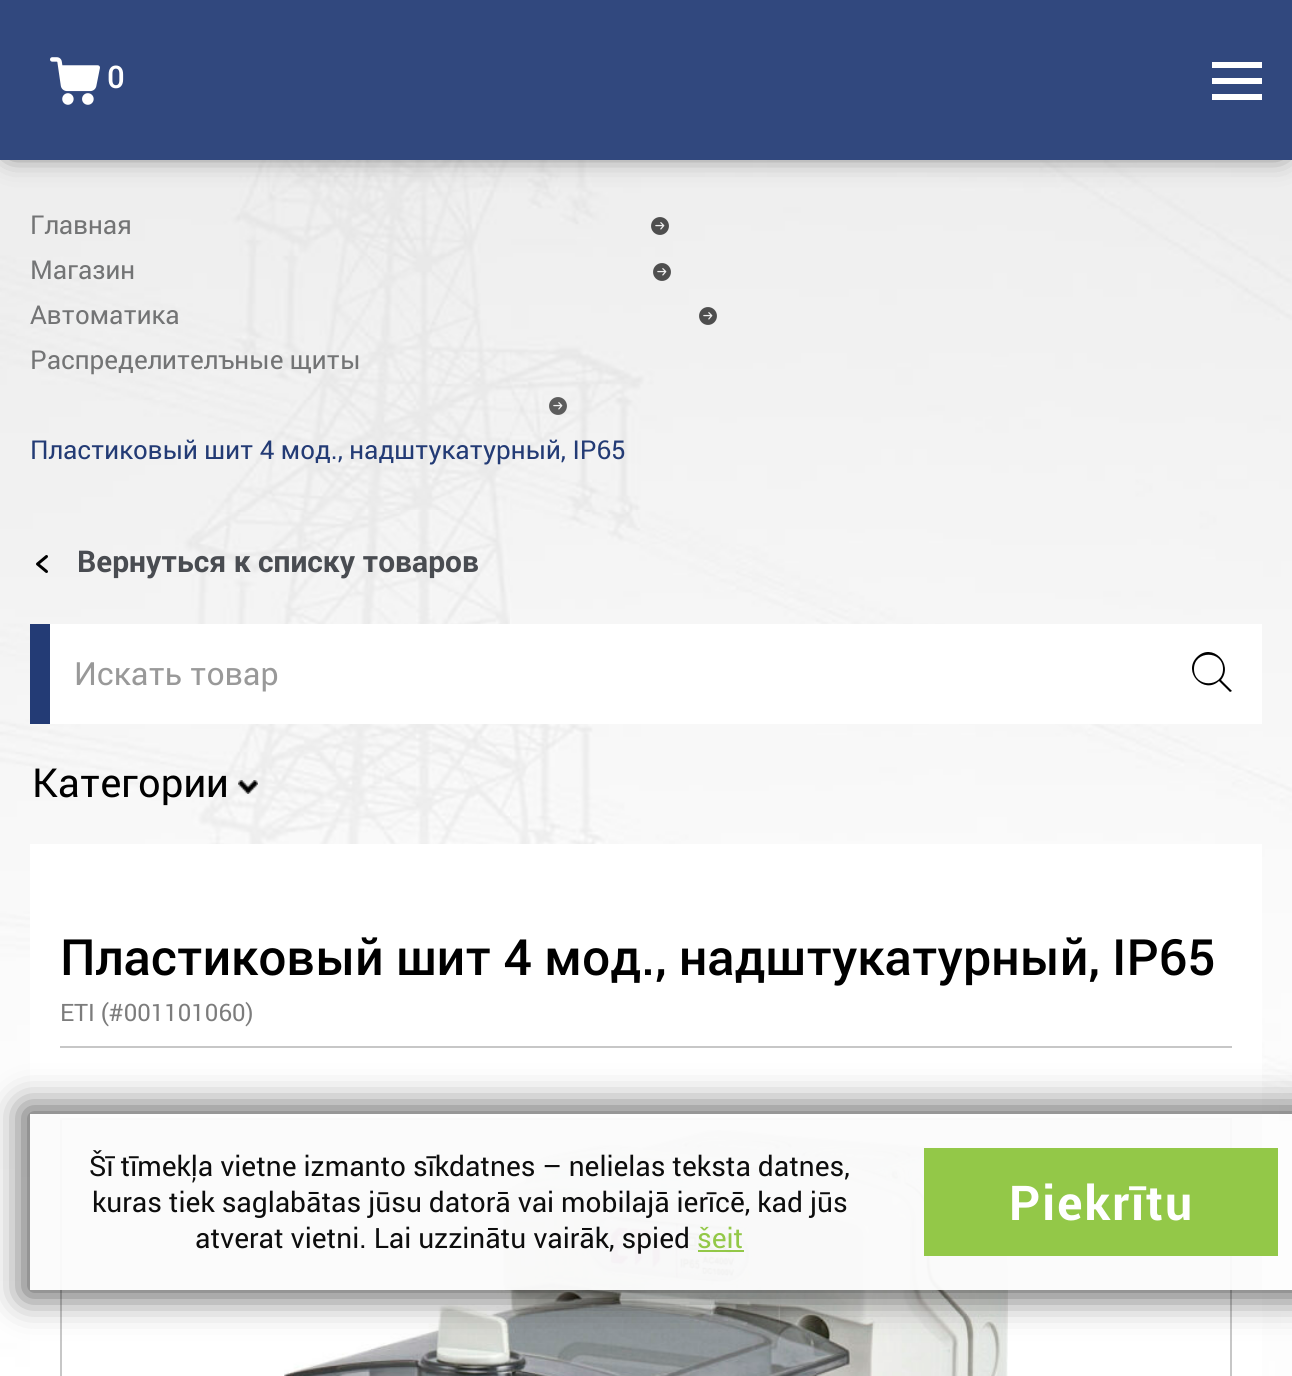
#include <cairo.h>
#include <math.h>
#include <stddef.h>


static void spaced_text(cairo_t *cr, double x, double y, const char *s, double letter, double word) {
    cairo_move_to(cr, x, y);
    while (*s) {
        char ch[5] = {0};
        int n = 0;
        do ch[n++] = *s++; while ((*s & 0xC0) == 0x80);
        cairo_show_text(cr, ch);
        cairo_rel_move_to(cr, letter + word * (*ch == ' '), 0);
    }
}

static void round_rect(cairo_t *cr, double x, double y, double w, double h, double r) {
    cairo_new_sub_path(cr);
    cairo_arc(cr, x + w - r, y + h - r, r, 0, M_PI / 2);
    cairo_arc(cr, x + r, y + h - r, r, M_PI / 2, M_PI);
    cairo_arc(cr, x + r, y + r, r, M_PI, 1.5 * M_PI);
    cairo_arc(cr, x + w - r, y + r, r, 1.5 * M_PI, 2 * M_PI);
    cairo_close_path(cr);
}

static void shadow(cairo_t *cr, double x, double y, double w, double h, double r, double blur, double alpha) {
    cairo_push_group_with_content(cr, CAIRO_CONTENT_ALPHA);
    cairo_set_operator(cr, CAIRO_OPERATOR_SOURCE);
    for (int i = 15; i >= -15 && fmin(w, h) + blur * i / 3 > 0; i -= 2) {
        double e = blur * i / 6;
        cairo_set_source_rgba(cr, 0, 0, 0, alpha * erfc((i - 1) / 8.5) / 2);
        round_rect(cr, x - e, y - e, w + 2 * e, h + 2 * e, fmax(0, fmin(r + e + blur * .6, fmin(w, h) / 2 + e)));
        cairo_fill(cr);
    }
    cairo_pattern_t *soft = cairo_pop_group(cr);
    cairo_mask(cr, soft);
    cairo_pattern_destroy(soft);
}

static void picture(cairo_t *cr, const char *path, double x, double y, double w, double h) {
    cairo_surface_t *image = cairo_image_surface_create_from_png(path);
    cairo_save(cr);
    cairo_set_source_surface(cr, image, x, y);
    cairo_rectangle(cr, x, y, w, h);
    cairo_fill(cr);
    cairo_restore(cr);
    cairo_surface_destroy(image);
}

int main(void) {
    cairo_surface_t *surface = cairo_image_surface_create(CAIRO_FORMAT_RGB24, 1292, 1376);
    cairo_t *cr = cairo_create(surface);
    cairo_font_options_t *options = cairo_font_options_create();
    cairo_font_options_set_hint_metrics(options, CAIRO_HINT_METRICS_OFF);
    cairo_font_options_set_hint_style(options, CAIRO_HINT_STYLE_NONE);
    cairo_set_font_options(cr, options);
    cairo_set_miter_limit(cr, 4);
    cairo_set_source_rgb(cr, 1, 1, 1);
    cairo_paint(cr);
    picture(cr, "img2.png", 0, 160, 1292, 1216);
    cairo_set_source_rgb(cr, 0.2, 0.2, 0.2);
    shadow(cr, 10, 10, 1272, 140, 0, 15, 1);
    cairo_set_source_rgb(cr, 0.192, 0.282, 0.494);
    cairo_rectangle(cr, 0, 0, 1292, 160);
    cairo_fill(cr);
    picture(cr, "img1.png", 50, 57, 50, 48);
    cairo_select_font_face(cr, "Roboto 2", CAIRO_FONT_SLANT_NORMAL, CAIRO_FONT_WEIGHT_BOLD);
    cairo_set_font_size(cr, 30);
    cairo_set_source_rgb(cr, 1, 1, 1);
    cairo_move_to(cr, 107, 88);
    cairo_show_text(cr, "0");
    cairo_rectangle(cr, 1212, 62, 50, 6);
    cairo_fill(cr);
    cairo_rectangle(cr, 1212, 78, 50, 6);
    cairo_fill(cr);
    cairo_rectangle(cr, 1212, 94, 50, 6);
    cairo_fill(cr);
    cairo_select_font_face(cr, "Roboto", CAIRO_FONT_SLANT_NORMAL, CAIRO_FONT_WEIGHT_NORMAL);
    cairo_set_font_size(cr, 26);
    cairo_set_source_rgb(cr, 0.451, 0.455, 0.459);
    cairo_move_to(cr, 30, 234);
    cairo_show_text(cr, "Главная");
    picture(cr, "img3.png", 651, 217, 18, 18);
    cairo_move_to(cr, 30, 279);
    cairo_show_text(cr, "Магазин");
    picture(cr, "img4.png", 653, 263, 18, 18);
    cairo_move_to(cr, 30, 324);
    cairo_show_text(cr, "Автоматика");
    picture(cr, "img5.png", 699, 307, 18, 18);
    cairo_move_to(cr, 30, 369);
    cairo_show_text(cr, "Распределителъные щиты");
    picture(cr, "img6.png", 549, 397, 18, 18);
    cairo_set_source_rgb(cr, 0.137, 0.231, 0.459);
    cairo_move_to(cr, 30, 459);
    cairo_show_text(cr, "Пластиковый шит 4 мод., надштукатурный, IP65");
    picture(cr, "img7.png", 36, 555, 12, 18);
    cairo_select_font_face(cr, "Roboto", CAIRO_FONT_SLANT_NORMAL, CAIRO_FONT_WEIGHT_BOLD);
    cairo_set_font_size(cr, 30);
    cairo_set_source_rgb(cr, 0.286, 0.298, 0.318);
    cairo_move_to(cr, 77, 572);
    cairo_show_text(cr, "Вернуться к списку товаров");
    cairo_set_source_rgb(cr, 1, 1, 1);
    cairo_rectangle(cr, 50, 624, 1212, 100);
    cairo_fill(cr);
    cairo_set_source_rgb(cr, 0.137, 0.231, 0.459);
    cairo_rectangle(cr, 30, 624, 20, 100);
    cairo_fill(cr);
    cairo_select_font_face(cr, "Roboto", CAIRO_FONT_SLANT_NORMAL, CAIRO_FONT_WEIGHT_NORMAL);
    cairo_set_font_size(cr, 32);
    cairo_set_source_rgb(cr, 0.6, 0.6, 0.6);
    cairo_move_to(cr, 74, 685);
    cairo_show_text(cr, "Искать товар");
    cairo_set_source_rgb(cr, 0, 0, 0);
    cairo_new_path(cr);
    cairo_move_to(cr, 1232, 691);
    cairo_line_to(cr, 1221, 680);
    cairo_curve_to(cr, 1234, 664, 1212, 642, 1197, 657);
    cairo_curve_to(cr, 1182, 672, 1204, 695, 1219, 681);
    cairo_line_to(cr, 1230, 692);
    cairo_close_path(cr);
    cairo_move_to(cr, 1194, 669);
    cairo_curve_to(cr, 1194, 650, 1223, 650, 1223, 669);
    cairo_curve_to(cr, 1223, 688, 1194, 688, 1194, 669);
    cairo_close_path(cr);
    cairo_fill(cr);
    cairo_set_font_size(cr, 40);
    cairo_move_to(cr, 32, 797);
    cairo_show_text(cr, "Категории");
    picture(cr, "img8.png", 238, 780, 20, 14);
    cairo_set_source_rgb(cr, 1, 1, 1);
    cairo_rectangle(cr, 30, 844, 1232, 532);
    cairo_fill(cr);
    cairo_select_font_face(cr, "Roboto Medium", CAIRO_FONT_SLANT_NORMAL, CAIRO_FONT_WEIGHT_NORMAL);
    cairo_set_font_size(cr, 50);
    cairo_set_source_rgb(cr, 0, 0, 0);
    cairo_move_to(cr, 60, 975);
    cairo_show_text(cr, "Пластиковый шит 4 мод., надштукатурный, IP65");
    cairo_set_source_rgb(cr, 0.78, 0.78, 0.78);
    cairo_rectangle(cr, 60, 1046, 1172, 2);
    cairo_fill(cr);
    cairo_select_font_face(cr, "Roboto", CAIRO_FONT_SLANT_NORMAL, CAIRO_FONT_WEIGHT_NORMAL);
    cairo_set_font_size(cr, 24);
    cairo_set_source_rgb(cr, 0.486, 0.486, 0.486);
    cairo_move_to(cr, 60, 1021);
    cairo_show_text(cr, "ETI (#001101060)");
    cairo_rectangle(cr, 61, 1119, 1170, 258);
    cairo_set_source_rgb(cr, 0.78, 0.78, 0.78);
    cairo_stroke(cr);
    picture(cr, "img9.png", 284, 1130, 724, 246);
    cairo_save(cr);
    cairo_set_fill_rule(cr, CAIRO_FILL_RULE_EVEN_ODD);
    cairo_new_path(cr);
    cairo_move_to(cr, 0, 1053);
    cairo_line_to(cr, 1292, 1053);
    cairo_line_to(cr, 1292, 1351);
    cairo_line_to(cr, 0, 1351);
    cairo_close_path(cr);
    cairo_move_to(cr, 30, 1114);
    cairo_line_to(cr, 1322, 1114);
    cairo_line_to(cr, 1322, 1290);
    cairo_line_to(cr, 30, 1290);
    cairo_close_path(cr);
    cairo_clip(cr);
    cairo_set_source_rgb(cr, 0, 0, 0);
    shadow(cr, 24, 1108, 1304, 188, 0, 18, 0.66);
    cairo_restore(cr);
    cairo_set_source_rgba(cr, 0.984, 0.984, 0.984, 0.95);
    cairo_rectangle(cr, 30, 1114, 1232, 176);
    cairo_fill(cr);
    cairo_set_font_size(cr, 28);
    cairo_set_source_rgb(cr, 0.051, 0.051, 0.051);
    cairo_move_to(cr, 89, 1176);
    cairo_show_text(cr, "Šī tīmekļa vietne izmanto sīkdatnes – nelielas teksta datnes,");
    cairo_move_to(cr, 92, 1212);
    cairo_show_text(cr, "kuras tiek saglabātas jūsu datorā vai mobilajā ierīcē, kad jūs");
    cairo_move_to(cr, 195, 1248);
    cairo_show_text(cr, "atverat vietni. Lai uzzinātu vairāk, spied");
    cairo_set_source_rgb(cr, 0.576, 0.784, 0.282);
    cairo_move_to(cr, 697, 1248);
    cairo_show_text(cr, "šeit");
    cairo_set_source_rgba(cr, 0.557, 0.776, 0.247, 0.95);
    cairo_rectangle(cr, 698, 1250, 46, 2);
    cairo_fill(cr);
    cairo_rectangle(cr, 924, 1148, 354, 108);
    cairo_fill(cr);
    cairo_select_font_face(cr, "Roboto", CAIRO_FONT_SLANT_NORMAL, CAIRO_FONT_WEIGHT_BOLD);
    cairo_set_font_size(cr, 48);
    cairo_set_source_rgb(cr, 1, 1, 1);
    spaced_text(cr, 1009, 1220, "Piekrītu", 2, 0);
    cairo_surface_write_to_png(surface, "page.png");
    cairo_font_options_destroy(options);
    cairo_destroy(cr);
    cairo_surface_destroy(surface);
    return 0;
}
